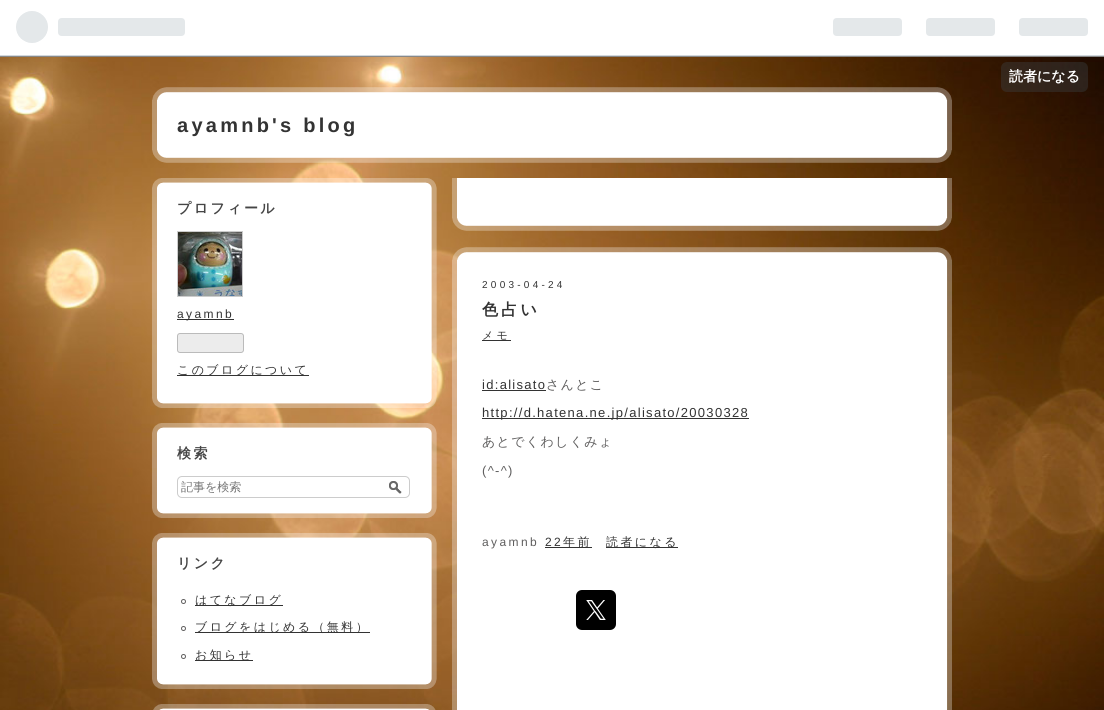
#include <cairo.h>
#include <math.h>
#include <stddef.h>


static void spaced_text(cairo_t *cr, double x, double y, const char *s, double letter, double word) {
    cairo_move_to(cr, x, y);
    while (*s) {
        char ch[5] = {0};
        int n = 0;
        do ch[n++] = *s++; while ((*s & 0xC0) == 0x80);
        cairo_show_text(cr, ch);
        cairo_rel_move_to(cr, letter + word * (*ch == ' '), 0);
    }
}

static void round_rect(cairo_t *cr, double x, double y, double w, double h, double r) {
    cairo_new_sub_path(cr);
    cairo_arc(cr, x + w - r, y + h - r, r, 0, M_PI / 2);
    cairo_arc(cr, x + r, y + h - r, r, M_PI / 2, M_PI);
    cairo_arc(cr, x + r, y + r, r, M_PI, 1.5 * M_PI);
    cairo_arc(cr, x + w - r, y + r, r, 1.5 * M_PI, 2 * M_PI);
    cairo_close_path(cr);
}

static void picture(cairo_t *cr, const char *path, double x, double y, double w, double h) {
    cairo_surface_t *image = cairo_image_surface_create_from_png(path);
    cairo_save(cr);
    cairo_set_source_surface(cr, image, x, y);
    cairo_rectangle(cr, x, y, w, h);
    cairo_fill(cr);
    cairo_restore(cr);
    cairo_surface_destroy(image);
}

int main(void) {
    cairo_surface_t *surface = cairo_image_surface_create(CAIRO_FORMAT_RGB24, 1104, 710);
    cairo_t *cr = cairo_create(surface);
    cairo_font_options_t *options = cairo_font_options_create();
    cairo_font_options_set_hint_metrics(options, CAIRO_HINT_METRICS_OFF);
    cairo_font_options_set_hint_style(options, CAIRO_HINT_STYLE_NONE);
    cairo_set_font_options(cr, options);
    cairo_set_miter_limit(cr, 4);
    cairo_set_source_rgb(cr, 1, 1, 1);
    cairo_paint(cr);
    picture(cr, "img1.png", 0, 57, 1104, 653);
    cairo_set_source_rgb(cr, 0.824, 0.847, 0.867);
    cairo_rectangle(cr, 0, 55, 1104, 1);
    cairo_fill(cr);
    cairo_set_source_rgb(cr, 0.533, 0.533, 0.533);
    cairo_rectangle(cr, 0, 56, 1104, 1);
    cairo_fill(cr);
    picture(cr, "img2.png", 16, 11, 169, 32);
    picture(cr, "img3.png", 833, 18, 255, 18);
    cairo_set_source_rgba(cr, 0.239, 0.259, 0.271, 0.4);
    round_rect(cr, 1001, 62, 87, 30, 6);
    cairo_fill(cr);
    cairo_select_font_face(cr, "WenQuanYi Zen Hei", CAIRO_FONT_SLANT_NORMAL, CAIRO_FONT_WEIGHT_BOLD);
    cairo_set_font_size(cr, 14);
    cairo_set_source_rgb(cr, 1, 1, 1);
    cairo_move_to(cr, 1009, 81);
    cairo_show_text(cr, "読者になる");
    picture(cr, "img4.png", 152, 87, 800, 13);
    picture(cr, "img5.png", 152, 150, 800, 13);
    picture(cr, "img6.png", 152, 100, 800, 50);
    cairo_select_font_face(cr, "Liberation Sans", CAIRO_FONT_SLANT_NORMAL, CAIRO_FONT_WEIGHT_BOLD);
    cairo_set_font_size(cr, 20);
    cairo_set_source_rgb(cr, 0.2, 0.2, 0.2);
    spaced_text(cr, 177, 132, "ayamnb's blog", 3.25, 0);
    picture(cr, "img7.png", 152, 178, 285, 13);
    picture(cr, "img8.png", 152, 191, 285, 30);
    cairo_select_font_face(cr, "WenQuanYi Zen Hei", CAIRO_FONT_SLANT_NORMAL, CAIRO_FONT_WEIGHT_BOLD);
    cairo_set_font_size(cr, 14);
    cairo_set_source_rgb(cr, 0.271, 0.271, 0.271);
    spaced_text(cr, 177, 213, "プロフィール", 2.4, 0);
    picture(cr, "img9.png", 152, 221, 285, 187);
    cairo_rectangle(cr, 177.5, 231.5, 65, 65);
    cairo_set_source_rgb(cr, 0.8, 0.8, 0.8);
    cairo_set_line_width(cr, 1);
    cairo_stroke(cr);
    picture(cr, "img10.png", 178, 232, 64, 64);
    cairo_set_source_rgb(cr, 0.2, 0.2, 0.2);
    cairo_rectangle(cr, 177, 319, 57, 1);
    cairo_fill(cr);
    cairo_select_font_face(cr, "Liberation Sans", CAIRO_FONT_SLANT_NORMAL, CAIRO_FONT_WEIGHT_NORMAL);
    cairo_set_font_size(cr, 12);
    spaced_text(cr, 177, 318, "ayamnb", 2.4, 0);
    cairo_set_source_rgb(cr, 0.922, 0.922, 0.922);
    round_rect(cr, 177.5, 333.5, 66, 19, 2.5);
    cairo_fill_preserve(cr);
    cairo_set_source_rgb(cr, 0.733, 0.733, 0.733);
    cairo_stroke(cr);
    cairo_set_source_rgb(cr, 0.2, 0.2, 0.2);
    cairo_rectangle(cr, 177, 375, 132, 1);
    cairo_fill(cr);
    cairo_select_font_face(cr, "WenQuanYi Zen Hei Medium", CAIRO_FONT_SLANT_NORMAL, CAIRO_FONT_WEIGHT_NORMAL);
    spaced_text(cr, 177, 374, "このブログについて", 2.4, 0);
    picture(cr, "img11.png", 152, 423, 285, 13);
    picture(cr, "img12.png", 152, 436, 285, 30);
    cairo_select_font_face(cr, "WenQuanYi Zen Hei", CAIRO_FONT_SLANT_NORMAL, CAIRO_FONT_WEIGHT_BOLD);
    cairo_set_font_size(cr, 14);
    cairo_set_source_rgb(cr, 0.271, 0.271, 0.271);
    spaced_text(cr, 177, 458, "検索", 2.4, 0);
    picture(cr, "img13.png", 152, 466, 285, 52);
    round_rect(cr, 177.5, 476.5, 232, 21, 4.5);
    cairo_set_source_rgb(cr, 0.8, 0.8, 0.8);
    cairo_stroke(cr);
    cairo_select_font_face(cr, "WenQuanYi Zen Hei Medium", CAIRO_FONT_SLANT_NORMAL, CAIRO_FONT_WEIGHT_NORMAL);
    cairo_set_font_size(cr, 12);
    cairo_set_source_rgb(cr, 0.459, 0.459, 0.459);
    cairo_move_to(cr, 181, 491);
    cairo_show_text(cr, "記事を検索");
    picture(cr, "img14.png", 389, 481, 13, 13);
    picture(cr, "img15.png", 152, 533, 285, 13);
    picture(cr, "img16.png", 152, 546, 285, 30);
    cairo_select_font_face(cr, "WenQuanYi Zen Hei", CAIRO_FONT_SLANT_NORMAL, CAIRO_FONT_WEIGHT_BOLD);
    cairo_set_font_size(cr, 14);
    cairo_set_source_rgb(cr, 0.271, 0.271, 0.271);
    spaced_text(cr, 177, 568, "リンク", 2.4, 0);
    picture(cr, "img17.png", 152, 576, 285, 113);
    cairo_arc(cr, 183.5, 601.5, 2, 0, 2 * M_PI);
    cairo_set_source_rgb(cr, 0.373, 0.369, 0.369);
    cairo_stroke(cr);
    cairo_set_source_rgb(cr, 0.2, 0.2, 0.2);
    cairo_rectangle(cr, 195, 605, 88, 1);
    cairo_fill(cr);
    cairo_select_font_face(cr, "WenQuanYi Zen Hei Medium", CAIRO_FONT_SLANT_NORMAL, CAIRO_FONT_WEIGHT_NORMAL);
    cairo_set_font_size(cr, 12);
    spaced_text(cr, 195, 604, "はてなブログ", 2.4, 0);
    cairo_new_path(cr);
    cairo_arc(cr, 183.5, 628.5, 2, 0, 2 * M_PI);
    cairo_set_source_rgb(cr, 0.373, 0.369, 0.369);
    cairo_stroke(cr);
    cairo_set_source_rgb(cr, 0.2, 0.2, 0.2);
    cairo_rectangle(cr, 195, 632, 175, 1);
    cairo_fill(cr);
    spaced_text(cr, 195, 631, "ブログをはじめる（無料）", 2.4, 0);
    cairo_new_path(cr);
    cairo_arc(cr, 183.5, 656.5, 2, 0, 2 * M_PI);
    cairo_set_source_rgb(cr, 0.373, 0.369, 0.369);
    cairo_stroke(cr);
    cairo_set_source_rgb(cr, 0.2, 0.2, 0.2);
    cairo_rectangle(cr, 195, 660, 58, 1);
    cairo_fill(cr);
    spaced_text(cr, 195, 659, "お知らせ", 2.4, 0);
    picture(cr, "img18.png", 153, 704, 283, 6);
    picture(cr, "img19.png", 452, 218, 500, 13);
    picture(cr, "img20.png", 452, 178, 500, 40);
    picture(cr, "img21.png", 452, 247, 500, 13);
    picture(cr, "img22.png", 452, 260, 500, 30);
    cairo_select_font_face(cr, "Liberation Sans", CAIRO_FONT_SLANT_NORMAL, CAIRO_FONT_WEIGHT_NORMAL);
    cairo_set_font_size(cr, 10);
    spaced_text(cr, 482, 288, "2003-04-24", 3.25, 0);
    picture(cr, "img23.png", 452, 290, 500, 31);
    cairo_select_font_face(cr, "WenQuanYi Zen Hei", CAIRO_FONT_SLANT_NORMAL, CAIRO_FONT_WEIGHT_BOLD);
    cairo_set_font_size(cr, 16);
    spaced_text(cr, 482, 315, "色占い", 3.25, 0);
    picture(cr, "img24.png", 452, 321, 500, 21);
    cairo_select_font_face(cr, "WenQuanYi Zen Hei Medium", CAIRO_FONT_SLANT_NORMAL, CAIRO_FONT_WEIGHT_NORMAL);
    cairo_set_font_size(cr, 11);
    spaced_text(cr, 482, 339, "メモ", 3.25, 0);
    cairo_rectangle(cr, 482, 340, 29, 1);
    cairo_fill(cr);
    picture(cr, "img25.png", 452, 342, 500, 172);
    cairo_select_font_face(cr, "Liberation Sans", CAIRO_FONT_SLANT_NORMAL, CAIRO_FONT_WEIGHT_NORMAL);
    cairo_set_font_size(cr, 13);
    spaced_text(cr, 482, 389, "id:alisato", 1.3, 0);
    cairo_rectangle(cr, 482, 390, 64, 1);
    cairo_fill(cr);
    cairo_select_font_face(cr, "WenQuanYi Zen Hei Medium", CAIRO_FONT_SLANT_NORMAL, CAIRO_FONT_WEIGHT_NORMAL);
    cairo_set_source_rgb(cr, 0.373, 0.369, 0.369);
    spaced_text(cr, 546, 389, "さんとこ", 1.3, 0);
    cairo_set_source_rgb(cr, 0.2, 0.2, 0.2);
    cairo_rectangle(cr, 482, 418, 267, 1);
    cairo_fill(cr);
    cairo_select_font_face(cr, "Liberation Sans", CAIRO_FONT_SLANT_NORMAL, CAIRO_FONT_WEIGHT_NORMAL);
    spaced_text(cr, 482, 417, "http://d.hatena.ne.jp/alisato/20030328", 1.3, 0);
    cairo_select_font_face(cr, "WenQuanYi Zen Hei Medium", CAIRO_FONT_SLANT_NORMAL, CAIRO_FONT_WEIGHT_NORMAL);
    cairo_set_source_rgb(cr, 0.373, 0.369, 0.369);
    spaced_text(cr, 482, 446, "あとでくわしくみょ", 1.3, 0);
    cairo_select_font_face(cr, "Liberation Sans", CAIRO_FONT_SLANT_NORMAL, CAIRO_FONT_WEIGHT_NORMAL);
    spaced_text(cr, 482, 475, "(^-^)", 1.3, 0);
    picture(cr, "img26.png", 452, 514, 500, 196);
    cairo_set_font_size(cr, 12);
    spaced_text(cr, 482, 546, "ayamnb", 2.4, 0);
    cairo_set_source_rgb(cr, 0.2, 0.2, 0.2);
    spaced_text(cr, 545, 546, "22", 2.4, 0);
    cairo_rectangle(cr, 545, 547, 47, 1);
    cairo_fill(cr);
    cairo_select_font_face(cr, "WenQuanYi Zen Hei Medium", CAIRO_FONT_SLANT_NORMAL, CAIRO_FONT_WEIGHT_NORMAL);
    spaced_text(cr, 563, 546, "年前", 2.4, 0);
    cairo_rectangle(cr, 606, 547, 72, 1);
    cairo_fill(cr);
    spaced_text(cr, 606, 546, "読者になる", 2.4, 0);
    cairo_set_source_rgb(cr, 0, 0, 0);
    round_rect(cr, 576, 590, 40, 40, 6);
    cairo_fill(cr);
    picture(cr, "img27.png", 586, 600, 20, 20);
    cairo_surface_write_to_png(surface, "page.png");
    cairo_font_options_destroy(options);
    cairo_destroy(cr);
    cairo_surface_destroy(surface);
    return 0;
}
